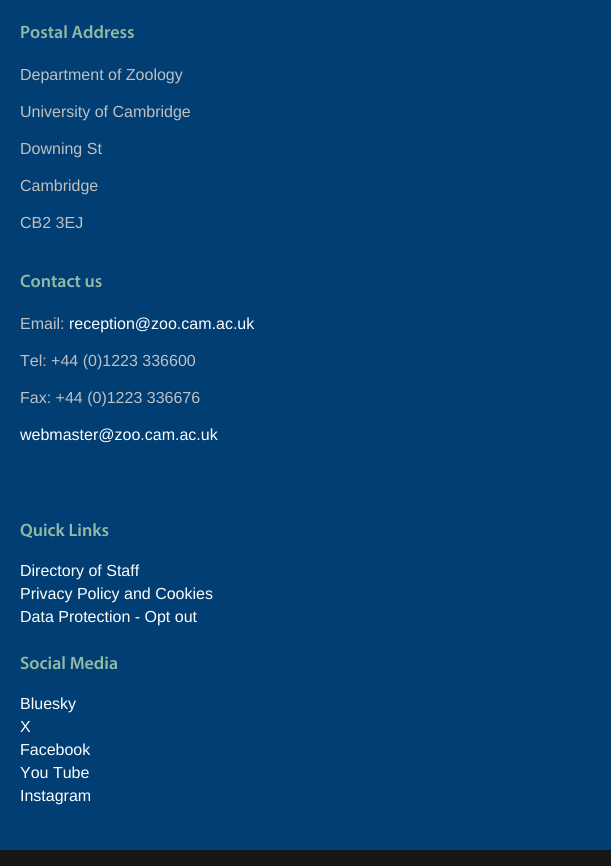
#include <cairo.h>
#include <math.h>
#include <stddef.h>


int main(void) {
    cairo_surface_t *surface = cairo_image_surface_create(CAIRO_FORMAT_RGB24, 611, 866);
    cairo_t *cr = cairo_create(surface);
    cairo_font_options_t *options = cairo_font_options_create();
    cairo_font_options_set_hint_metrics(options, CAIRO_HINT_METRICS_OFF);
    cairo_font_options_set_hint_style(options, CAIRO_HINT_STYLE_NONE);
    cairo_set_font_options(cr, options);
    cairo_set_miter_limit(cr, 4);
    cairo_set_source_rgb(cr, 0, 0.243, 0.455);
    cairo_paint(cr);
    cairo_select_font_face(cr, "Myriad SemiBold", CAIRO_FONT_SLANT_NORMAL, CAIRO_FONT_WEIGHT_NORMAL);
    cairo_set_font_size(cr, 18);
    cairo_set_source_rgb(cr, 0.569, 0.725, 0.643);
    cairo_move_to(cr, 20, 38);
    cairo_show_text(cr, "Postal Address");
    cairo_select_font_face(cr, "Liberation Sans", CAIRO_FONT_SLANT_NORMAL, CAIRO_FONT_WEIGHT_NORMAL);
    cairo_set_font_size(cr, 16);
    cairo_set_source_rgb(cr, 0.753, 0.753, 0.753);
    cairo_move_to(cr, 20, 80);
    cairo_show_text(cr, "Department of Zoology");
    cairo_move_to(cr, 20, 117);
    cairo_show_text(cr, "University of Cambridge");
    cairo_move_to(cr, 20, 154);
    cairo_show_text(cr, "Downing St");
    cairo_move_to(cr, 20, 191);
    cairo_show_text(cr, "Cambridge");
    cairo_move_to(cr, 20, 228);
    cairo_show_text(cr, "CB2 3EJ");
    cairo_select_font_face(cr, "Myriad SemiBold", CAIRO_FONT_SLANT_NORMAL, CAIRO_FONT_WEIGHT_NORMAL);
    cairo_set_font_size(cr, 18);
    cairo_set_source_rgb(cr, 0.569, 0.725, 0.643);
    cairo_move_to(cr, 20, 287);
    cairo_show_text(cr, "Contact us");
    cairo_select_font_face(cr, "Liberation Sans", CAIRO_FONT_SLANT_NORMAL, CAIRO_FONT_WEIGHT_NORMAL);
    cairo_set_font_size(cr, 16);
    cairo_set_source_rgb(cr, 0.753, 0.753, 0.753);
    cairo_move_to(cr, 20, 329);
    cairo_show_text(cr, "Email:");
    cairo_set_source_rgb(cr, 1, 1, 1);
    cairo_move_to(cr, 69, 329);
    cairo_show_text(cr, "reception@zoo.cam.ac.uk");
    cairo_set_source_rgb(cr, 0.753, 0.753, 0.753);
    cairo_move_to(cr, 20, 366);
    cairo_show_text(cr, "Tel: +44 (0)1223 336600");
    cairo_move_to(cr, 20, 403);
    cairo_show_text(cr, "Fax: +44 (0)1223 336676");
    cairo_set_source_rgb(cr, 1, 1, 1);
    cairo_move_to(cr, 20, 440);
    cairo_show_text(cr, "webmaster@zoo.cam.ac.uk");
    cairo_select_font_face(cr, "Myriad SemiBold", CAIRO_FONT_SLANT_NORMAL, CAIRO_FONT_WEIGHT_NORMAL);
    cairo_set_font_size(cr, 18);
    cairo_set_source_rgb(cr, 0.569, 0.725, 0.643);
    cairo_move_to(cr, 20, 536);
    cairo_show_text(cr, "Quick Links");
    cairo_select_font_face(cr, "Liberation Sans", CAIRO_FONT_SLANT_NORMAL, CAIRO_FONT_WEIGHT_NORMAL);
    cairo_set_font_size(cr, 16);
    cairo_set_source_rgb(cr, 1, 1, 1);
    cairo_move_to(cr, 20, 576);
    cairo_show_text(cr, "Directory of Staff");
    cairo_move_to(cr, 20, 599);
    cairo_show_text(cr, "Privacy Policy and Cookies");
    cairo_move_to(cr, 20, 622);
    cairo_show_text(cr, "Data Protection - Opt out");
    cairo_select_font_face(cr, "Myriad SemiBold", CAIRO_FONT_SLANT_NORMAL, CAIRO_FONT_WEIGHT_NORMAL);
    cairo_set_font_size(cr, 18);
    cairo_set_source_rgb(cr, 0.569, 0.725, 0.643);
    cairo_move_to(cr, 20, 669);
    cairo_show_text(cr, "Social Media");
    cairo_select_font_face(cr, "Liberation Sans", CAIRO_FONT_SLANT_NORMAL, CAIRO_FONT_WEIGHT_NORMAL);
    cairo_set_font_size(cr, 16);
    cairo_set_source_rgb(cr, 1, 1, 1);
    cairo_move_to(cr, 20, 709);
    cairo_show_text(cr, "Bluesky");
    cairo_move_to(cr, 20, 732);
    cairo_show_text(cr, "X");
    cairo_move_to(cr, 20, 755);
    cairo_show_text(cr, "Facebook");
    cairo_move_to(cr, 20, 778);
    cairo_show_text(cr, "You Tube");
    cairo_move_to(cr, 20, 801);
    cairo_show_text(cr, "Instagram");
    cairo_set_source_rgb(cr, 0.09, 0.09, 0.09);
    cairo_rectangle(cr, 0, 850, 611, 16);
    cairo_fill(cr);
    cairo_surface_write_to_png(surface, "page.png");
    cairo_font_options_destroy(options);
    cairo_destroy(cr);
    cairo_surface_destroy(surface);
    return 0;
}
